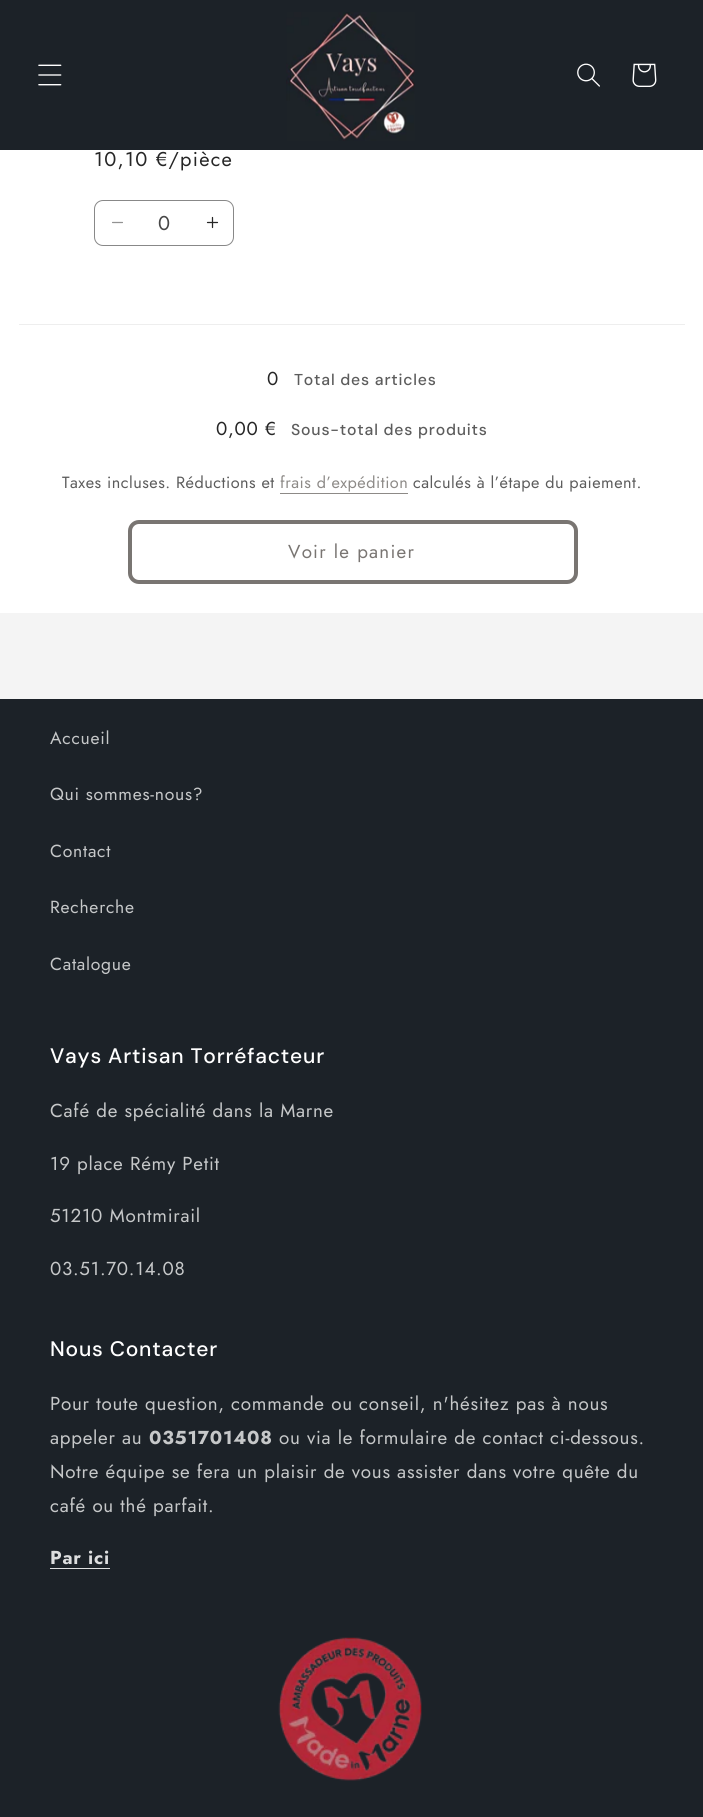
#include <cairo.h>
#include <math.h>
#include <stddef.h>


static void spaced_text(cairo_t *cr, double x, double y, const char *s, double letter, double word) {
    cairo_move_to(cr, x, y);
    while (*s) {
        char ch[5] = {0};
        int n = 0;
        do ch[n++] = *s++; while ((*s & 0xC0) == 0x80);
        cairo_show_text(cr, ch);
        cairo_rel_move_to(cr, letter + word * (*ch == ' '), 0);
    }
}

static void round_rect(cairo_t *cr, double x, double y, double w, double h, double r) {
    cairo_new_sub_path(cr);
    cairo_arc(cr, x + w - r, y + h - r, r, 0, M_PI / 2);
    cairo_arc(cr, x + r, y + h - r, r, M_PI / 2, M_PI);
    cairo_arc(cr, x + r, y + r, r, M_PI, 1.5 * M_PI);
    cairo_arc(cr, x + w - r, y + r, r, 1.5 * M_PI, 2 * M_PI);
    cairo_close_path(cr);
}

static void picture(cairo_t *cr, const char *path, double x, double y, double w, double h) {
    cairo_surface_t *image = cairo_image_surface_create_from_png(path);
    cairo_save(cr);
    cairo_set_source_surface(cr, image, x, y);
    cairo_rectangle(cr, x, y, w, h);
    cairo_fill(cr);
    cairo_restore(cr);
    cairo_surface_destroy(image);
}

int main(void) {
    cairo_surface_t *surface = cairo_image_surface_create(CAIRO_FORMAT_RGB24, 703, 1817);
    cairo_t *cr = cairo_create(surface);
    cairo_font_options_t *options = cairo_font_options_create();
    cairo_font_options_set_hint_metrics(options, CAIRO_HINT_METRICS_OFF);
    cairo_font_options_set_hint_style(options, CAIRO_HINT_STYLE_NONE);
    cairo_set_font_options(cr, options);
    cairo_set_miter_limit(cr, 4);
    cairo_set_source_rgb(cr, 0.957, 0.957, 0.957);
    cairo_paint(cr);
    cairo_set_source_rgb(cr, 0.11, 0.133, 0.157);
    cairo_rectangle(cr, 0, 0, 703, 150);
    cairo_fill(cr);
    picture(cr, "img1.png", 38, 64, 24, 22);
    picture(cr, "img2.png", 286, 12, 129, 129);
    picture(cr, "img3.png", 577, 63, 23, 24);
    picture(cr, "img4.png", 632, 63, 25, 24);
    cairo_set_source_rgb(cr, 1, 1, 1);
    cairo_rectangle(cr, 0, 150, 703, 463);
    cairo_fill(cr);
    cairo_select_font_face(cr, "Jost", CAIRO_FONT_SLANT_NORMAL, CAIRO_FONT_WEIGHT_NORMAL);
    cairo_set_font_size(cr, 20);
    cairo_set_source_rgb(cr, 0.149, 0.149, 0.149);
    spaced_text(cr, 94, 166, "10,10 €/pièce", 1.25, 0);
    picture(cr, "img5.png", 112, 221, 11, 3);
    picture(cr, "img6.png", 206, 216, 13, 13);
    round_rect(cr, 94.5, 200.5, 139, 45, 8.5);
    cairo_set_source_rgb(cr, 0.533, 0.533, 0.533);
    cairo_set_line_width(cr, 1);
    cairo_stroke(cr);
    cairo_set_source_rgb(cr, 0.278, 0.278, 0.278);
    cairo_move_to(cr, 158, 230);
    cairo_show_text(cr, "0");
    cairo_set_source_rgb(cr, 0.933, 0.933, 0.933);
    cairo_rectangle(cr, 19, 324, 666, 1);
    cairo_fill(cr);
    cairo_set_font_size(cr, 18.75);
    cairo_set_source_rgb(cr, 0.149, 0.149, 0.149);
    spaced_text(cr, 267, 385, "0", 0.75, 0);
    cairo_select_font_face(cr, "DM Sans Medium", CAIRO_FONT_SLANT_NORMAL, CAIRO_FONT_WEIGHT_NORMAL);
    cairo_set_font_size(cr, 15.75);
    cairo_set_source_rgb(cr, 0.361, 0.361, 0.361);
    spaced_text(cr, 294, 385, "Total des articles", 0.8, 0);
    cairo_select_font_face(cr, "Jost", CAIRO_FONT_SLANT_NORMAL, CAIRO_FONT_WEIGHT_NORMAL);
    cairo_set_font_size(cr, 18.75);
    cairo_set_source_rgb(cr, 0.149, 0.149, 0.149);
    spaced_text(cr, 216, 435, "0,00 €", 0.75, 0);
    cairo_select_font_face(cr, "DM Sans Medium", CAIRO_FONT_SLANT_NORMAL, CAIRO_FONT_WEIGHT_NORMAL);
    cairo_set_font_size(cr, 15.75);
    cairo_set_source_rgb(cr, 0.361, 0.361, 0.361);
    spaced_text(cr, 291, 435, "Sous-total des produits", 0.8, 0);
    cairo_select_font_face(cr, "Jost", CAIRO_FONT_SLANT_NORMAL, CAIRO_FONT_WEIGHT_NORMAL);
    cairo_set_font_size(cr, 16.25);
    spaced_text(cr, 62, 488, "Taxes incluses. Réductions et", 0.5, 0);
    cairo_set_source_rgb(cr, 0.553, 0.541, 0.529);
    spaced_text(cr, 280, 488, "frais d’expédition", 0.5, 0);
    cairo_rectangle(cr, 280, 493, 128, 1);
    cairo_fill(cr);
    cairo_set_source_rgb(cr, 0.361, 0.361, 0.361);
    spaced_text(cr, 413, 488, "calculés à l’étape du paiement.", 0.5, 0);
    round_rect(cr, 130, 522, 446, 60, 9);
    cairo_set_source_rgb(cr, 0.475, 0.459, 0.447);
    cairo_set_line_width(cr, 4);
    cairo_stroke(cr);
    cairo_set_font_size(cr, 18.75);
    spaced_text(cr, 288, 558, "Voir le panier", 1.25, 0);
    cairo_set_source_rgb(cr, 0.11, 0.133, 0.157);
    cairo_rectangle(cr, 0, 699, 703, 1118);
    cairo_fill(cr);
    cairo_set_font_size(cr, 17.5);
    cairo_set_source_rgb(cr, 0.776, 0.784, 0.788);
    spaced_text(cr, 50, 744, "Accueil", 0.75, 0);
    spaced_text(cr, 50, 800, "Qui sommes-nous?", 0.75, 0);
    spaced_text(cr, 50, 857, "Contact", 0.75, 0);
    spaced_text(cr, 50, 913, "Recherche", 0.75, 0);
    spaced_text(cr, 50, 970, "Catalogue", 0.75, 0);
    cairo_select_font_face(cr, "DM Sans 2 Medium", CAIRO_FONT_SLANT_NORMAL, CAIRO_FONT_WEIGHT_NORMAL);
    cairo_set_font_size(cr, 21);
    cairo_set_source_rgb(cr, 1, 1, 1);
    spaced_text(cr, 50, 1063, "Vays Artisan Torréfacteur", 0.8, 0);
    cairo_select_font_face(cr, "Jost", CAIRO_FONT_SLANT_NORMAL, CAIRO_FONT_WEIGHT_NORMAL);
    cairo_set_font_size(cr, 18.75);
    cairo_set_source_rgb(cr, 0.776, 0.784, 0.788);
    spaced_text(cr, 50, 1117, "Café de spécialité dans la Marne", 0.75, 0);
    spaced_text(cr, 50, 1170, "19 place Rémy Petit", 0.75, 0);
    spaced_text(cr, 50, 1222, "51210 Montmirail", 0.75, 0);
    spaced_text(cr, 50, 1275, "03.51.70.14.08", 0.75, 0);
    cairo_select_font_face(cr, "DM Sans 2 Medium", CAIRO_FONT_SLANT_NORMAL, CAIRO_FONT_WEIGHT_NORMAL);
    cairo_set_font_size(cr, 21);
    cairo_set_source_rgb(cr, 1, 1, 1);
    spaced_text(cr, 50, 1356, "Nous Contacter", 0.8, 0);
    cairo_select_font_face(cr, "Jost", CAIRO_FONT_SLANT_NORMAL, CAIRO_FONT_WEIGHT_NORMAL);
    cairo_set_font_size(cr, 18.75);
    cairo_set_source_rgb(cr, 0.776, 0.784, 0.788);
    spaced_text(cr, 50, 1410, "Pour toute question, commande ou conseil, n'hésitez pas à nous", 0.75, 0);
    spaced_text(cr, 50, 1444, "appeler au", 0.75, 0);
    cairo_select_font_face(cr, "Jost", CAIRO_FONT_SLANT_NORMAL, CAIRO_FONT_WEIGHT_BOLD);
    spaced_text(cr, 149, 1444, "0351701408", 0.75, 0);
    cairo_select_font_face(cr, "Jost", CAIRO_FONT_SLANT_NORMAL, CAIRO_FONT_WEIGHT_NORMAL);
    spaced_text(cr, 279, 1444, "ou via le formulaire de contact ci-dessous.", 0.75, 0);
    spaced_text(cr, 50, 1478, "Notre équipe se fera un plaisir de vous assister dans votre quête du", 0.75, 0);
    spaced_text(cr, 50, 1512, "café ou thé parfait.", 0.75, 0);
    cairo_select_font_face(cr, "Jost", CAIRO_FONT_SLANT_NORMAL, CAIRO_FONT_WEIGHT_BOLD);
    cairo_set_source_rgb(cr, 0.867, 0.871, 0.875);
    spaced_text(cr, 50, 1564, "Par ici", 0.75, 0);
    cairo_rectangle(cr, 50, 1568, 60, 1);
    cairo_fill(cr);
    picture(cr, "img7.png", 278, 1637, 144, 144);
    cairo_surface_write_to_png(surface, "page.png");
    cairo_font_options_destroy(options);
    cairo_destroy(cr);
    cairo_surface_destroy(surface);
    return 0;
}
